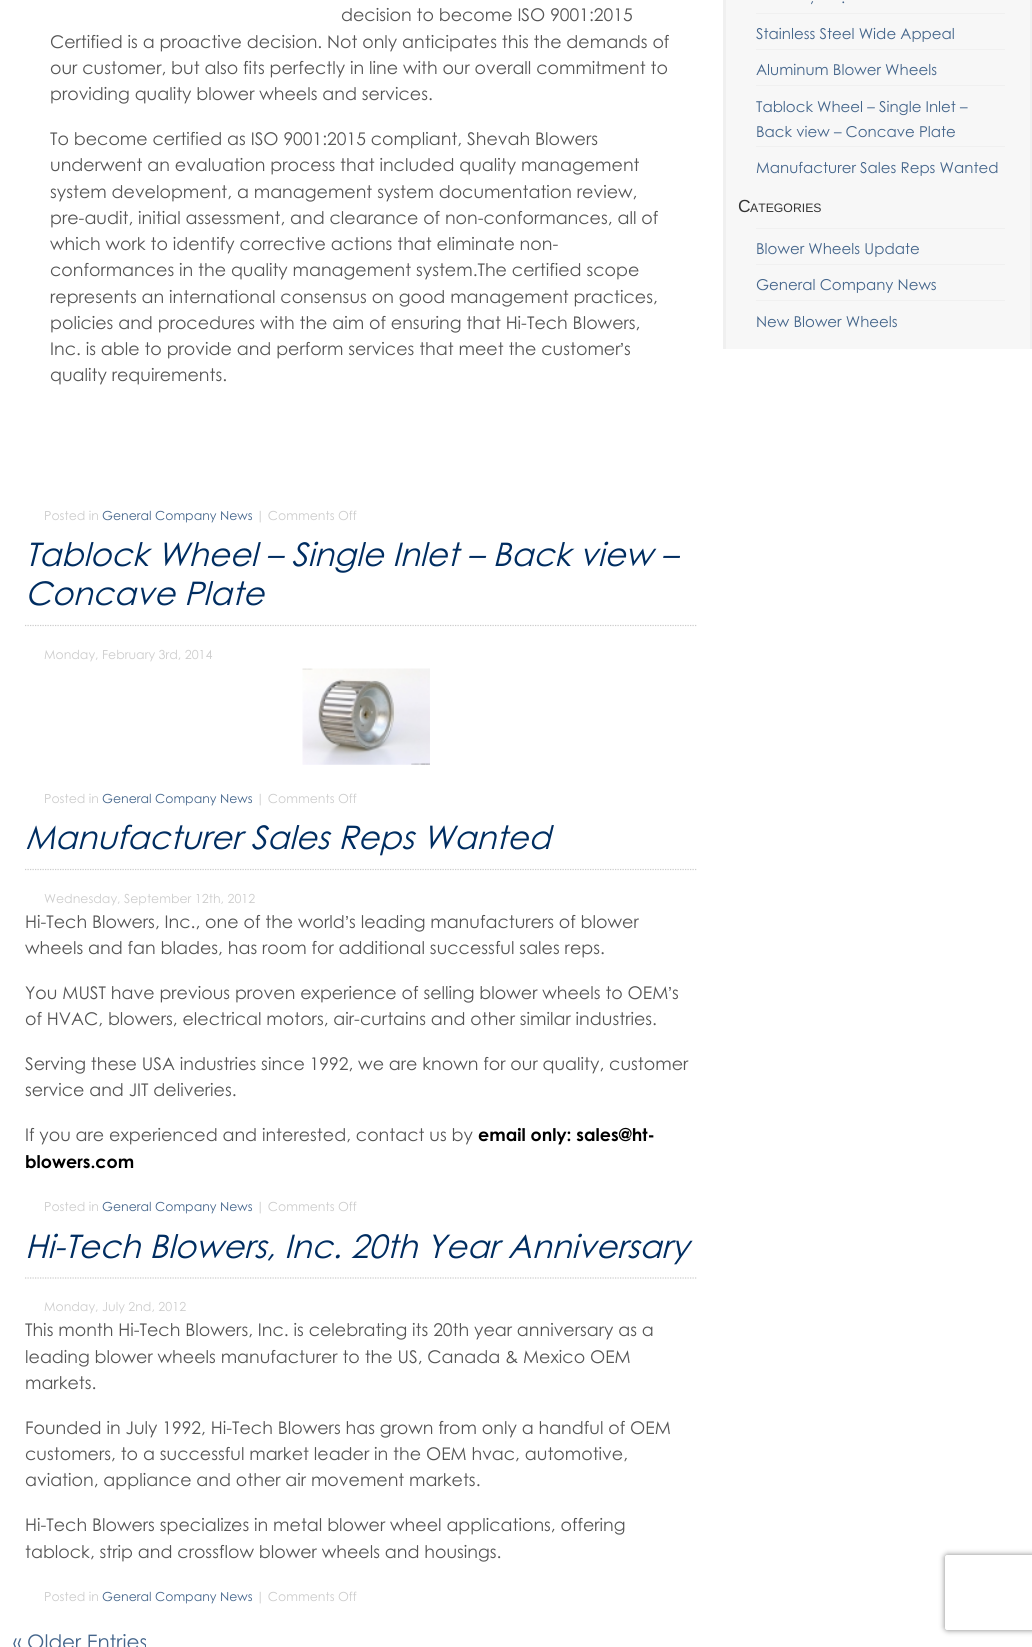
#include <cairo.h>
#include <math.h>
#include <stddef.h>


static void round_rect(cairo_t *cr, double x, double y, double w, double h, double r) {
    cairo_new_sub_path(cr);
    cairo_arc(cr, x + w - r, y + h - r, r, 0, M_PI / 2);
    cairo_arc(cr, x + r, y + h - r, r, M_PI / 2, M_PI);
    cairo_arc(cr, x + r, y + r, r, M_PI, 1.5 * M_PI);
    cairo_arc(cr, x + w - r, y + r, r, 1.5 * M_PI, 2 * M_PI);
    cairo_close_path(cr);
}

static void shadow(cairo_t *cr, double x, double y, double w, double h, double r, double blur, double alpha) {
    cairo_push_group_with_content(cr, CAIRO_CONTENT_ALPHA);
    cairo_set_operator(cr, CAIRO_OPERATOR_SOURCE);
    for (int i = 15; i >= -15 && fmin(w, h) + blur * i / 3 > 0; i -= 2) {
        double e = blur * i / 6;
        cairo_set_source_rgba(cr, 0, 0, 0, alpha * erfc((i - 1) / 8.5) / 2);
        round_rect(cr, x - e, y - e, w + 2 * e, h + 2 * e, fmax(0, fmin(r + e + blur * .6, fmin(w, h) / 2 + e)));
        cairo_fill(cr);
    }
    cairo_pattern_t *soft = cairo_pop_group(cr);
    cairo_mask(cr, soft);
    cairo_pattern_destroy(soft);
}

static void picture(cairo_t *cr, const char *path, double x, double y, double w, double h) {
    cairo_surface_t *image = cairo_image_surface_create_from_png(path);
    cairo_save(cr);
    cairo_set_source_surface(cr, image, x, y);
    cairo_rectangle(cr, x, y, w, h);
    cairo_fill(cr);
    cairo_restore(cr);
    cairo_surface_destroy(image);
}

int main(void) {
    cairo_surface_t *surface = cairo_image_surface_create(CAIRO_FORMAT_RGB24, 1032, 1647);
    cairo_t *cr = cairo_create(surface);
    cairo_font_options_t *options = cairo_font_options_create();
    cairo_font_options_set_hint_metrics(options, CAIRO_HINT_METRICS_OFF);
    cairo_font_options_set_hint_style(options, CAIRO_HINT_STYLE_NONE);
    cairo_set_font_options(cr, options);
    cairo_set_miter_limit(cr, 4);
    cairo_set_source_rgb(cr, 1, 1, 1);
    cairo_paint(cr);
    cairo_select_font_face(cr, "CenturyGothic", CAIRO_FONT_SLANT_NORMAL, CAIRO_FONT_WEIGHT_NORMAL);
    cairo_set_font_size(cr, 17.5);
    cairo_set_source_rgb(cr, 0.333, 0.333, 0.333);
    cairo_move_to(cr, 341, 21);
    cairo_show_text(cr, "decision to become ISO 9001:2015");
    cairo_move_to(cr, 50, 48);
    cairo_show_text(cr, "Certified is a proactive decision. Not only anticipates this the demands of");
    cairo_move_to(cr, 50, 74);
    cairo_show_text(cr, "our customer, but also fits perfectly in line with our overall commitment to");
    cairo_move_to(cr, 50, 100);
    cairo_show_text(cr, "providing quality blower wheels and services.");
    cairo_move_to(cr, 50, 145);
    cairo_show_text(cr, "To become certified as ISO 9001:2015 compliant, Shevah Blowers");
    cairo_move_to(cr, 50, 171);
    cairo_show_text(cr, "underwent an evaluation process that included quality management");
    cairo_move_to(cr, 50, 198);
    cairo_show_text(cr, "system development, a management system documentation review,");
    cairo_move_to(cr, 50, 224);
    cairo_show_text(cr, "pre-audit, initial assessment, and clearance of non-conformances, all of");
    cairo_move_to(cr, 50, 250);
    cairo_show_text(cr, "which work to identify corrective actions that eliminate non-");
    cairo_move_to(cr, 50, 276);
    cairo_show_text(cr, "conformances in the quality management system.The certified scope");
    cairo_move_to(cr, 50, 303);
    cairo_show_text(cr, "represents an international consensus on good management practices,");
    cairo_move_to(cr, 50, 329);
    cairo_show_text(cr, "policies and procedures with the aim of ensuring that Hi-Tech Blowers,");
    cairo_move_to(cr, 50, 355);
    cairo_show_text(cr, "Inc. is able to provide and perform services that meet the customer");
    cairo_select_font_face(cr, "Liberation Sans", CAIRO_FONT_SLANT_NORMAL, CAIRO_FONT_WEIGHT_NORMAL);
    cairo_move_to(cr, 620, 355);
    cairo_show_text(cr, "’");
    cairo_select_font_face(cr, "CenturyGothic", CAIRO_FONT_SLANT_NORMAL, CAIRO_FONT_WEIGHT_NORMAL);
    cairo_move_to(cr, 624, 355);
    cairo_show_text(cr, "s");
    cairo_move_to(cr, 50, 381);
    cairo_show_text(cr, "quality requirements.");
    cairo_set_font_size(cr, 12.5);
    cairo_set_source_rgb(cr, 0.8, 0.8, 0.8);
    cairo_move_to(cr, 44, 520);
    cairo_show_text(cr, "Posted in");
    cairo_set_source_rgb(cr, 0.267, 0.396, 0.545);
    cairo_move_to(cr, 102, 520);
    cairo_show_text(cr, "General Company News");
    cairo_set_source_rgb(cr, 0.8, 0.8, 0.8);
    cairo_move_to(cr, 256, 520);
    cairo_show_text(cr, "| Comments Off");
    cairo_new_path(cr);
    cairo_move_to(cr, 25, 625.5);
    cairo_line_to(cr, 697.5, 625.5);
    cairo_set_line_width(cr, 1.2);
    cairo_set_dash(cr, (double[]){1.25, 1.25}, 2, 0);
    cairo_stroke(cr);
    cairo_select_font_face(cr, "CenturyGothic", CAIRO_FONT_SLANT_ITALIC, CAIRO_FONT_WEIGHT_NORMAL);
    cairo_set_font_size(cr, 32.5);
    cairo_set_source_rgb(cr, 0, 0.176, 0.38);
    cairo_move_to(cr, 25, 566);
    cairo_show_text(cr, "Tablock Wheel – Single Inlet – Back view –");
    cairo_move_to(cr, 25, 605);
    cairo_show_text(cr, "Concave Plate");
    cairo_select_font_face(cr, "CenturyGothic", CAIRO_FONT_SLANT_NORMAL, CAIRO_FONT_WEIGHT_NORMAL);
    cairo_set_font_size(cr, 12.5);
    cairo_set_source_rgb(cr, 0.8, 0.8, 0.8);
    cairo_move_to(cr, 44, 659);
    cairo_show_text(cr, "Monday, February 3rd, 2014");
    picture(cr, "img1.png", 302, 668, 128, 97);
    cairo_move_to(cr, 44, 803);
    cairo_show_text(cr, "Posted in");
    cairo_set_source_rgb(cr, 0.267, 0.396, 0.545);
    cairo_move_to(cr, 102, 803);
    cairo_show_text(cr, "General Company News");
    cairo_set_source_rgb(cr, 0.8, 0.8, 0.8);
    cairo_move_to(cr, 256, 803);
    cairo_show_text(cr, "| Comments Off");
    cairo_new_path(cr);
    cairo_move_to(cr, 25, 869.5);
    cairo_line_to(cr, 697.5, 869.5);
    cairo_stroke(cr);
    cairo_select_font_face(cr, "CenturyGothic", CAIRO_FONT_SLANT_ITALIC, CAIRO_FONT_WEIGHT_NORMAL);
    cairo_set_font_size(cr, 32.5);
    cairo_set_source_rgb(cr, 0, 0.176, 0.38);
    cairo_move_to(cr, 25, 849);
    cairo_show_text(cr, "Manufacturer Sales Reps Wanted");
    cairo_select_font_face(cr, "CenturyGothic", CAIRO_FONT_SLANT_NORMAL, CAIRO_FONT_WEIGHT_NORMAL);
    cairo_set_font_size(cr, 12.5);
    cairo_set_source_rgb(cr, 0.8, 0.8, 0.8);
    cairo_move_to(cr, 44, 903);
    cairo_show_text(cr, "Wednesday, September 12th, 2012");
    cairo_set_font_size(cr, 17.5);
    cairo_set_source_rgb(cr, 0.333, 0.333, 0.333);
    cairo_move_to(cr, 25, 928);
    cairo_show_text(cr, "Hi-Tech Blowers, Inc., one of the world");
    cairo_select_font_face(cr, "Liberation Sans", CAIRO_FONT_SLANT_NORMAL, CAIRO_FONT_WEIGHT_NORMAL);
    cairo_move_to(cr, 345, 928);
    cairo_show_text(cr, "’");
    cairo_select_font_face(cr, "CenturyGothic", CAIRO_FONT_SLANT_NORMAL, CAIRO_FONT_WEIGHT_NORMAL);
    cairo_move_to(cr, 349, 928);
    cairo_show_text(cr, "s leading manufacturers of blower");
    cairo_move_to(cr, 25, 954);
    cairo_show_text(cr, "wheels and fan blades, has room for additional successful sales reps.");
    cairo_move_to(cr, 25, 999);
    cairo_show_text(cr, "You MUST have previous proven experience of selling blower wheels to OEM");
    cairo_select_font_face(cr, "Liberation Sans", CAIRO_FONT_SLANT_NORMAL, CAIRO_FONT_WEIGHT_NORMAL);
    cairo_move_to(cr, 668, 999);
    cairo_show_text(cr, "’");
    cairo_select_font_face(cr, "CenturyGothic", CAIRO_FONT_SLANT_NORMAL, CAIRO_FONT_WEIGHT_NORMAL);
    cairo_move_to(cr, 672, 999);
    cairo_show_text(cr, "s");
    cairo_move_to(cr, 25, 1025);
    cairo_show_text(cr, "of HVAC, blowers, electrical motors, air-curtains and other similar industries.");
    cairo_move_to(cr, 25, 1070);
    cairo_show_text(cr, "Serving these USA industries since 1992, we are known for our quality, customer");
    cairo_move_to(cr, 25, 1096);
    cairo_show_text(cr, "service and JIT deliveries.");
    cairo_move_to(cr, 25, 1141);
    cairo_show_text(cr, "If you are experienced and interested, contact us by");
    cairo_select_font_face(cr, "CenturyGothic", CAIRO_FONT_SLANT_NORMAL, CAIRO_FONT_WEIGHT_BOLD);
    cairo_set_source_rgb(cr, 0, 0, 0);
    cairo_move_to(cr, 478, 1141);
    cairo_show_text(cr, "email only: sales@ht-");
    cairo_move_to(cr, 25, 1168);
    cairo_show_text(cr, "blowers.com");
    cairo_select_font_face(cr, "CenturyGothic", CAIRO_FONT_SLANT_NORMAL, CAIRO_FONT_WEIGHT_NORMAL);
    cairo_set_font_size(cr, 12.5);
    cairo_set_source_rgb(cr, 0.8, 0.8, 0.8);
    cairo_move_to(cr, 44, 1211);
    cairo_show_text(cr, "Posted in");
    cairo_set_source_rgb(cr, 0.267, 0.396, 0.545);
    cairo_move_to(cr, 102, 1211);
    cairo_show_text(cr, "General Company News");
    cairo_set_source_rgb(cr, 0.8, 0.8, 0.8);
    cairo_move_to(cr, 256, 1211);
    cairo_show_text(cr, "| Comments Off");
    cairo_new_path(cr);
    cairo_move_to(cr, 25, 1278);
    cairo_line_to(cr, 697.5, 1278);
    cairo_stroke(cr);
    cairo_select_font_face(cr, "CenturyGothic", CAIRO_FONT_SLANT_ITALIC, CAIRO_FONT_WEIGHT_NORMAL);
    cairo_set_font_size(cr, 32.5);
    cairo_set_source_rgb(cr, 0, 0.176, 0.38);
    cairo_move_to(cr, 25, 1258);
    cairo_show_text(cr, "Hi-Tech Blowers, Inc. 20th Year Anniversary");
    cairo_select_font_face(cr, "CenturyGothic", CAIRO_FONT_SLANT_NORMAL, CAIRO_FONT_WEIGHT_NORMAL);
    cairo_set_font_size(cr, 12.5);
    cairo_set_source_rgb(cr, 0.8, 0.8, 0.8);
    cairo_move_to(cr, 44, 1311);
    cairo_show_text(cr, "Monday, July 2nd, 2012");
    cairo_set_font_size(cr, 17.5);
    cairo_set_source_rgb(cr, 0.333, 0.333, 0.333);
    cairo_move_to(cr, 25, 1336);
    cairo_show_text(cr, "This month Hi-Tech Blowers, Inc. is celebrating its 20th year anniversary as a");
    cairo_move_to(cr, 25, 1363);
    cairo_show_text(cr, "leading blower wheels manufacturer to the US, Canada & Mexico OEM");
    cairo_move_to(cr, 25, 1389);
    cairo_show_text(cr, "markets.");
    cairo_move_to(cr, 25, 1434);
    cairo_show_text(cr, "Founded in July 1992, Hi-Tech Blowers has grown from only a handful of OEM");
    cairo_move_to(cr, 25, 1460);
    cairo_show_text(cr, "customers, to a successful market leader in the OEM hvac, automotive,");
    cairo_move_to(cr, 25, 1486);
    cairo_show_text(cr, "aviation, appliance and other air movement markets.");
    cairo_move_to(cr, 25, 1531);
    cairo_show_text(cr, "Hi-Tech Blowers specializes in metal blower wheel applications, offering");
    cairo_move_to(cr, 25, 1558);
    cairo_show_text(cr, "tablock, strip and crossflow blower wheels and housings.");
    cairo_set_font_size(cr, 12.5);
    cairo_set_source_rgb(cr, 0.8, 0.8, 0.8);
    cairo_move_to(cr, 44, 1601);
    cairo_show_text(cr, "Posted in");
    cairo_set_source_rgb(cr, 0.267, 0.396, 0.545);
    cairo_move_to(cr, 102, 1601);
    cairo_show_text(cr, "General Company News");
    cairo_set_source_rgb(cr, 0.8, 0.8, 0.8);
    cairo_move_to(cr, 256, 1601);
    cairo_show_text(cr, "| Comments Off");
    cairo_set_font_size(cr, 20);
    cairo_set_source_rgb(cr, 0.267, 0.396, 0.545);
    cairo_move_to(cr, 13, 1649);
    cairo_show_text(cr, "« Older Entries");
    cairo_set_source_rgb(cr, 0.965, 0.965, 0.965);
    cairo_rectangle(cr, 726, 0, 304, 349);
    cairo_fill(cr);
    cairo_set_source_rgb(cr, 0.941, 0.941, 0.941);
    cairo_rectangle(cr, 1030, 0, 2, 349);
    cairo_fill(cr);
    cairo_rectangle(cr, 723, 0, 3, 349);
    cairo_fill(cr);
    cairo_set_font_size(cr, 15);
    cairo_set_source_rgb(cr, 0.267, 0.396, 0.545);
    cairo_move_to(cr, 810, 3);
    cairo_show_text(cr, ",");
    cairo_move_to(cr, 841, 3);
    cairo_show_text(cr, ".");
    cairo_set_source_rgb(cr, 0.941, 0.941, 0.941);
    cairo_rectangle(cr, 756, 13, 249, 1);
    cairo_fill(cr);
    cairo_set_source_rgb(cr, 0.267, 0.396, 0.545);
    cairo_move_to(cr, 756, 39);
    cairo_show_text(cr, "Stainless Steel Wide Appeal");
    cairo_set_source_rgb(cr, 0.941, 0.941, 0.941);
    cairo_rectangle(cr, 756, 49, 249, 1);
    cairo_fill(cr);
    cairo_set_source_rgb(cr, 0.267, 0.396, 0.545);
    cairo_move_to(cr, 756, 75);
    cairo_show_text(cr, "Aluminum Blower Wheels");
    cairo_set_source_rgb(cr, 0.941, 0.941, 0.941);
    cairo_rectangle(cr, 756, 85, 249, 1);
    cairo_fill(cr);
    cairo_set_source_rgb(cr, 0.267, 0.396, 0.545);
    cairo_move_to(cr, 756, 112);
    cairo_show_text(cr, "Tablock Wheel – Single Inlet –");
    cairo_move_to(cr, 756, 137);
    cairo_show_text(cr, "Back view – Concave Plate");
    cairo_set_source_rgb(cr, 0.941, 0.941, 0.941);
    cairo_rectangle(cr, 756, 146, 249, 1);
    cairo_fill(cr);
    cairo_set_source_rgb(cr, 0.267, 0.396, 0.545);
    cairo_move_to(cr, 756, 173);
    cairo_show_text(cr, "Manufacturer Sales Reps Wanted");
    cairo_select_font_face(cr, "Liberation Sans", CAIRO_FONT_SLANT_NORMAL, CAIRO_FONT_WEIGHT_NORMAL);
    cairo_set_font_size(cr, 17.5);
    cairo_set_source_rgb(cr, 0.2, 0.2, 0.2);
    cairo_move_to(cr, 738, 212);
    cairo_show_text(cr, "C");
    cairo_set_font_size(cr, 12.25);
    cairo_move_to(cr, 750, 212);
    cairo_show_text(cr, "ATEGORIES");
    cairo_set_source_rgb(cr, 0.941, 0.941, 0.941);
    cairo_rectangle(cr, 756, 228, 249, 1);
    cairo_fill(cr);
    cairo_select_font_face(cr, "CenturyGothic", CAIRO_FONT_SLANT_NORMAL, CAIRO_FONT_WEIGHT_NORMAL);
    cairo_set_font_size(cr, 15);
    cairo_set_source_rgb(cr, 0.267, 0.396, 0.545);
    cairo_move_to(cr, 756, 254);
    cairo_show_text(cr, "Blower Wheels Update");
    cairo_set_source_rgb(cr, 0.941, 0.941, 0.941);
    cairo_rectangle(cr, 756, 264, 249, 1);
    cairo_fill(cr);
    cairo_set_source_rgb(cr, 0.267, 0.396, 0.545);
    cairo_move_to(cr, 756, 290);
    cairo_show_text(cr, "General Company News");
    cairo_set_source_rgb(cr, 0.941, 0.941, 0.941);
    cairo_rectangle(cr, 756, 300, 249, 1);
    cairo_fill(cr);
    cairo_set_source_rgb(cr, 0.267, 0.396, 0.545);
    cairo_move_to(cr, 756, 327);
    cairo_show_text(cr, "New Blower Wheels");
    cairo_save(cr);
    cairo_set_fill_rule(cr, CAIRO_FILL_RULE_EVEN_ODD);
    cairo_new_path(cr);
    cairo_move_to(cr, 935, 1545);
    cairo_line_to(cr, 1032, 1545);
    cairo_line_to(cr, 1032, 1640);
    cairo_line_to(cr, 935, 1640);
    cairo_close_path(cr);
    cairo_move_to(cr, 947.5, 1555);
    cairo_line_to(cr, 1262.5, 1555);
    cairo_curve_to(cr, 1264, 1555, 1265, 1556, 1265, 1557.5);
    cairo_line_to(cr, 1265, 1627.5);
    cairo_curve_to(cr, 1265, 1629, 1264, 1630, 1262.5, 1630);
    cairo_line_to(cr, 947.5, 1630);
    cairo_curve_to(cr, 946, 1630, 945, 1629, 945, 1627.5);
    cairo_line_to(cr, 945, 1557.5);
    cairo_curve_to(cr, 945, 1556, 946, 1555, 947.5, 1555);
    cairo_close_path(cr);
    cairo_clip(cr);
    cairo_set_source_rgb(cr, 0.502, 0.502, 0.502);
    shadow(cr, 945, 1555, 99, 75, 2.5, 3, 1);
    cairo_restore(cr);
    cairo_surface_write_to_png(surface, "page.png");
    cairo_font_options_destroy(options);
    cairo_destroy(cr);
    cairo_surface_destroy(surface);
    return 0;
}
